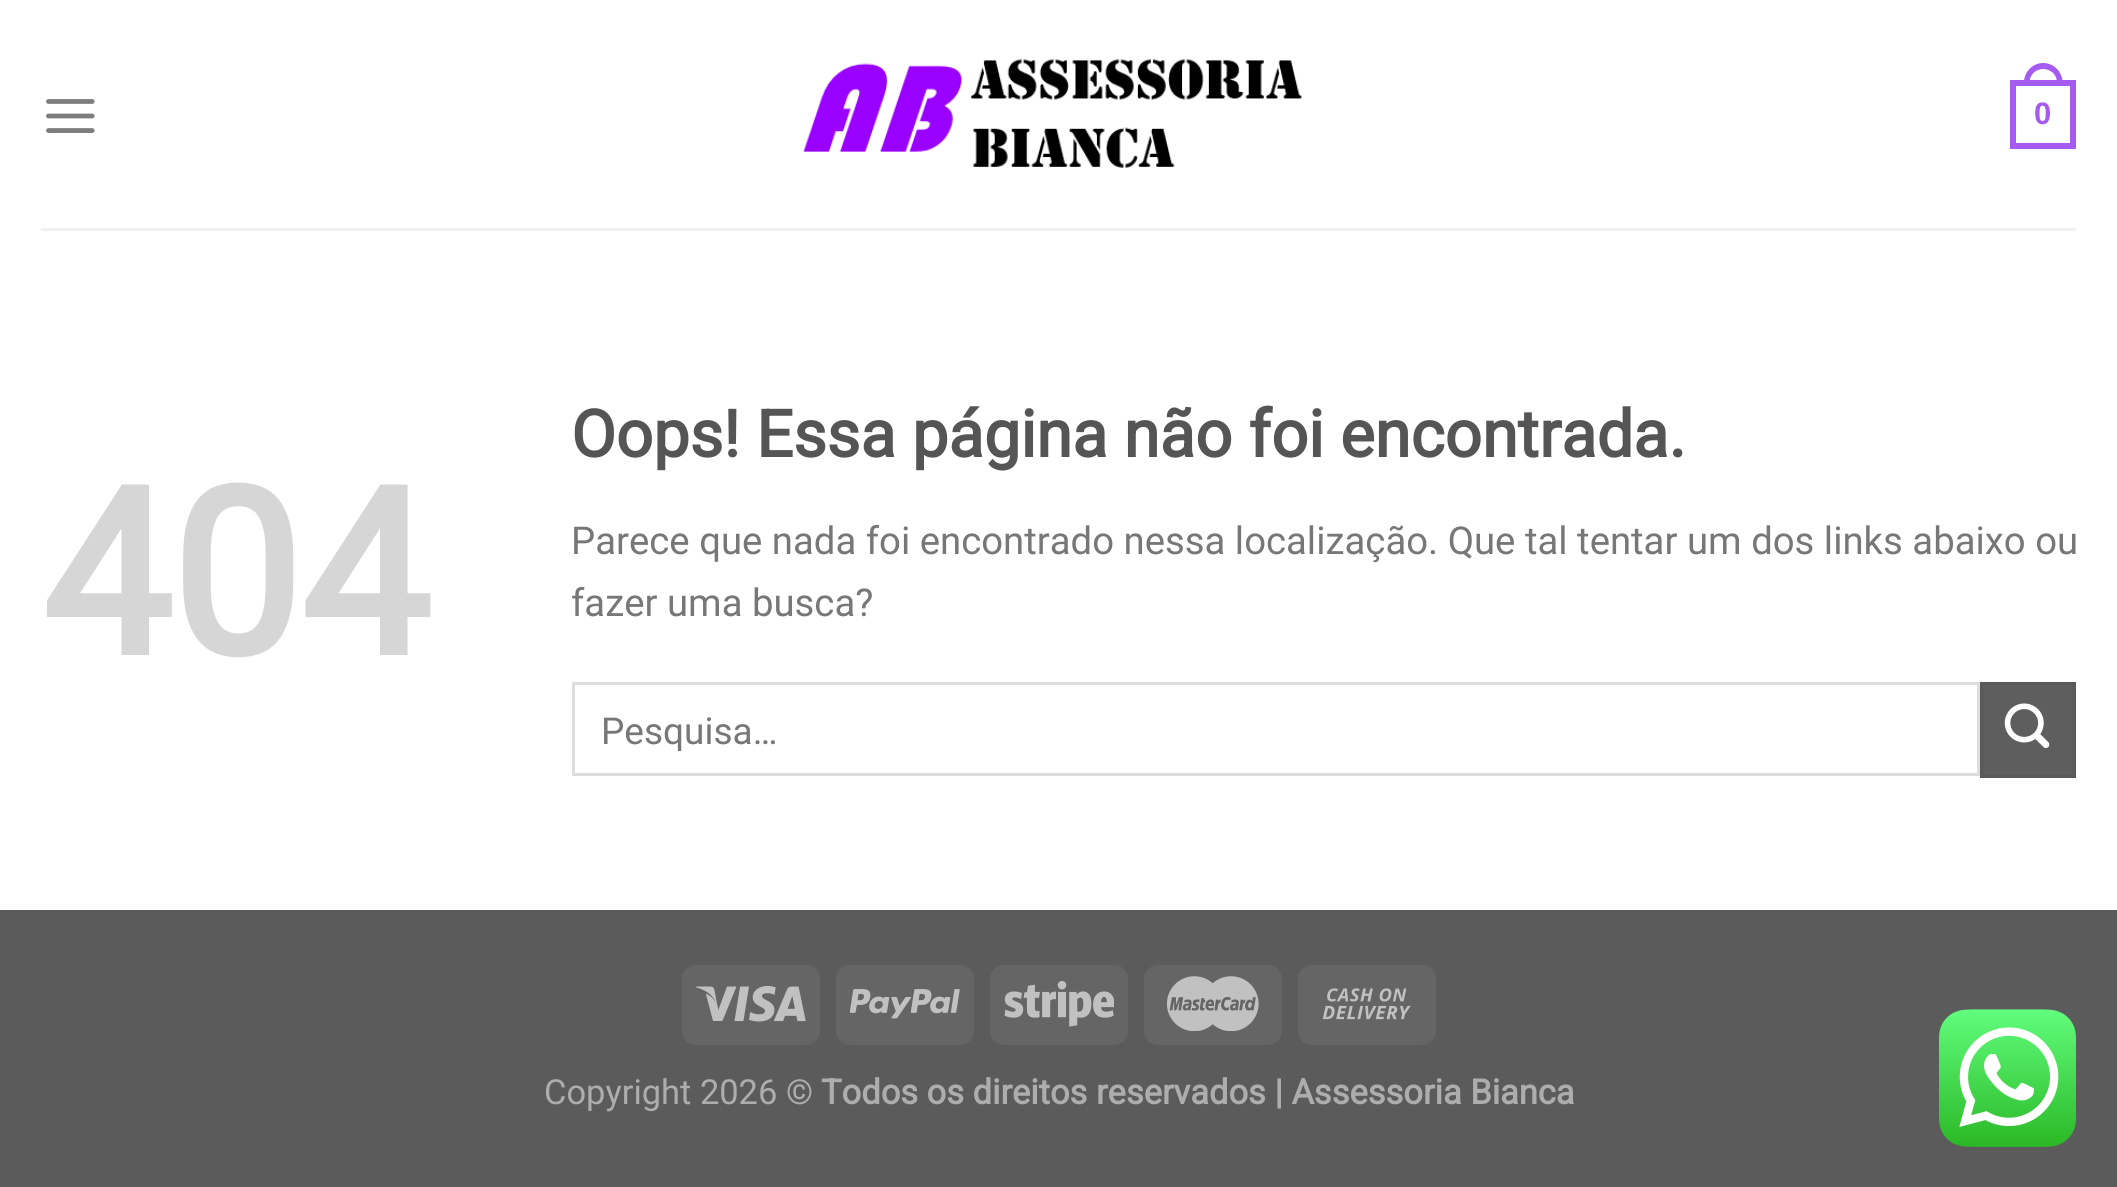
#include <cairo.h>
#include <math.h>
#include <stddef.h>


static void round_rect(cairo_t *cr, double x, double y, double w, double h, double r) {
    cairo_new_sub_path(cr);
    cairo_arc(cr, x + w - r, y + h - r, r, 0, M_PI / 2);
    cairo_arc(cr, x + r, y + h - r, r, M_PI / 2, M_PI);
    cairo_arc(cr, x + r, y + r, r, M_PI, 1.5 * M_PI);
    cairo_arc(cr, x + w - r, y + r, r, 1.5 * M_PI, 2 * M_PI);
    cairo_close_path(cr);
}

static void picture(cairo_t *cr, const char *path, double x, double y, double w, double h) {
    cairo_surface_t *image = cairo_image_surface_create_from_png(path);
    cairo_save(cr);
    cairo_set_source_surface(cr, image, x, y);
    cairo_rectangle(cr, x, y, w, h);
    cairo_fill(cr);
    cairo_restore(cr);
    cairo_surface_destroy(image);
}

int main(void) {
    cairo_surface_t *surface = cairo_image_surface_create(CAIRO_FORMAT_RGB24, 2117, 1187);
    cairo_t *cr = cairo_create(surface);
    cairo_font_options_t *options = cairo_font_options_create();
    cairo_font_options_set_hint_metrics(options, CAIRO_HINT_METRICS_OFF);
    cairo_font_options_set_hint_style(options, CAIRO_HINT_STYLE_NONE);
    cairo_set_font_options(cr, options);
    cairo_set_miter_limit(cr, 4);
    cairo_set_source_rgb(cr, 0.357, 0.357, 0.357);
    cairo_paint(cr);
    cairo_set_source_rgb(cr, 1, 1, 1);
    cairo_rectangle(cr, 0, 0, 2117, 910);
    cairo_fill(cr);
    picture(cr, "img1.png", 46, 99, 49, 34);
    picture(cr, "img2.png", 803, 59, 499, 109);
    cairo_rectangle(cr, 2013, 83, 60, 63);
    cairo_set_source_rgb(cr, 0.647, 0.353, 0.941);
    cairo_set_line_width(cr, 6);
    cairo_stroke(cr);
    cairo_set_fill_rule(cr, CAIRO_FILL_RULE_EVEN_ODD);
    cairo_new_path(cr);
    cairo_move_to(cr, 2043, 63);
    cairo_curve_to(cr, 2054, 63, 2062.5, 72, 2062.5, 82.5);
    cairo_line_to(cr, 2062.5, 85);
    cairo_line_to(cr, 2024, 85);
    cairo_line_to(cr, 2024, 82.5);
    cairo_curve_to(cr, 2024, 72, 2032.5, 63, 2043, 63);
    cairo_close_path(cr);
    cairo_move_to(cr, 2043, 69);
    cairo_curve_to(cr, 2051, 69, 2057, 75, 2057, 82.5);
    cairo_line_to(cr, 2057, 85);
    cairo_line_to(cr, 2029.5, 85);
    cairo_line_to(cr, 2029.5, 82.5);
    cairo_curve_to(cr, 2029.5, 75, 2035.5, 69, 2043, 69);
    cairo_close_path(cr);
    cairo_fill(cr);
    cairo_select_font_face(cr, "Liberation Sans", CAIRO_FONT_SLANT_NORMAL, CAIRO_FONT_WEIGHT_BOLD);
    cairo_set_font_size(cr, 31);
    cairo_move_to(cr, 2034, 124);
    cairo_show_text(cr, "0");
    cairo_set_source_rgb(cr, 0.945, 0.945, 0.945);
    cairo_rectangle(cr, 41, 228, 2035, 3);
    cairo_fill(cr);
    cairo_select_font_face(cr, "Roboto", CAIRO_FONT_SLANT_NORMAL, CAIRO_FONT_WEIGHT_BOLD);
    cairo_set_font_size(cr, 230);
    cairo_set_source_rgb(cr, 0.839, 0.839, 0.839);
    cairo_move_to(cr, 41, 655);
    cairo_show_text(cr, "404");
    cairo_set_font_size(cr, 65.1);
    cairo_set_source_rgb(cr, 0.333, 0.333, 0.333);
    cairo_move_to(cr, 571, 457);
    cairo_show_text(cr, "Oops! Essa página não foi encontrada.");
    cairo_select_font_face(cr, "Roboto", CAIRO_FONT_SLANT_NORMAL, CAIRO_FONT_WEIGHT_NORMAL);
    cairo_set_font_size(cr, 38.3);
    cairo_set_source_rgb(cr, 0.467, 0.467, 0.467);
    cairo_move_to(cr, 571, 554);
    cairo_show_text(cr, "Parece que nada foi encontrado nessa localização. Que tal tentar um dos links abaixo ou");
    cairo_move_to(cr, 571, 616);
    cairo_show_text(cr, "fazer uma busca?");
    cairo_rectangle(cr, 573.5, 683.5, 1405, 91);
    cairo_set_source_rgb(cr, 0.867, 0.867, 0.867);
    cairo_set_line_width(cr, 3);
    cairo_stroke(cr);
    cairo_save(cr);
    cairo_set_fill_rule(cr, CAIRO_FILL_RULE_WINDING);
    cairo_rectangle(cr, 602, 707, 1337, 44);
    cairo_clip(cr);
    cairo_set_font_size(cr, 37);
    cairo_set_source_rgb(cr, 0.467, 0.467, 0.467);
    cairo_move_to(cr, 601, 744);
    cairo_show_text(cr, "Pesquisa…");
    cairo_restore(cr);
    cairo_set_source_rgb(cr, 0.369, 0.369, 0.369);
    cairo_rectangle(cr, 1981.5, 683.5, 93, 93);
    cairo_fill_preserve(cr);
    cairo_set_source_rgb(cr, 0.349, 0.349, 0.349);
    cairo_stroke(cr);
    picture(cr, "img3.png", 2004, 703, 46, 45);
    cairo_set_source_rgb(cr, 0.396, 0.396, 0.396);
    round_rect(cr, 682, 965, 138, 80, 14);
    cairo_fill(cr);
    picture(cr, "img4.png", 696, 986, 110, 36);
    round_rect(cr, 836, 965, 138, 80, 14);
    cairo_fill(cr);
    picture(cr, "img5.png", 850, 989, 110, 30);
    round_rect(cr, 990, 965, 138, 80, 14);
    cairo_fill(cr);
    picture(cr, "img6.png", 1004, 981, 110, 46);
    round_rect(cr, 1144, 965, 138, 80, 14);
    cairo_fill(cr);
    picture(cr, "img7.png", 1166, 976, 93, 55);
    round_rect(cr, 1298, 965, 138, 80, 14);
    cairo_fill(cr);
    picture(cr, "img8.png", 1322, 988, 89, 32);
    cairo_set_font_size(cr, 34.45);
    cairo_set_source_rgb(cr, 0.678, 0.678, 0.678);
    cairo_move_to(cr, 544, 1104);
    cairo_show_text(cr, "Copyright 2026 ©");
    cairo_select_font_face(cr, "Roboto", CAIRO_FONT_SLANT_NORMAL, CAIRO_FONT_WEIGHT_BOLD);
    cairo_move_to(cr, 821, 1104);
    cairo_show_text(cr, "Todos os direitos reservados | Assessoria Bianca");
    picture(cr, "img9.png", 1939, 1009, 137, 138);
    cairo_surface_write_to_png(surface, "page.png");
    cairo_font_options_destroy(options);
    cairo_destroy(cr);
    cairo_surface_destroy(surface);
    return 0;
}
